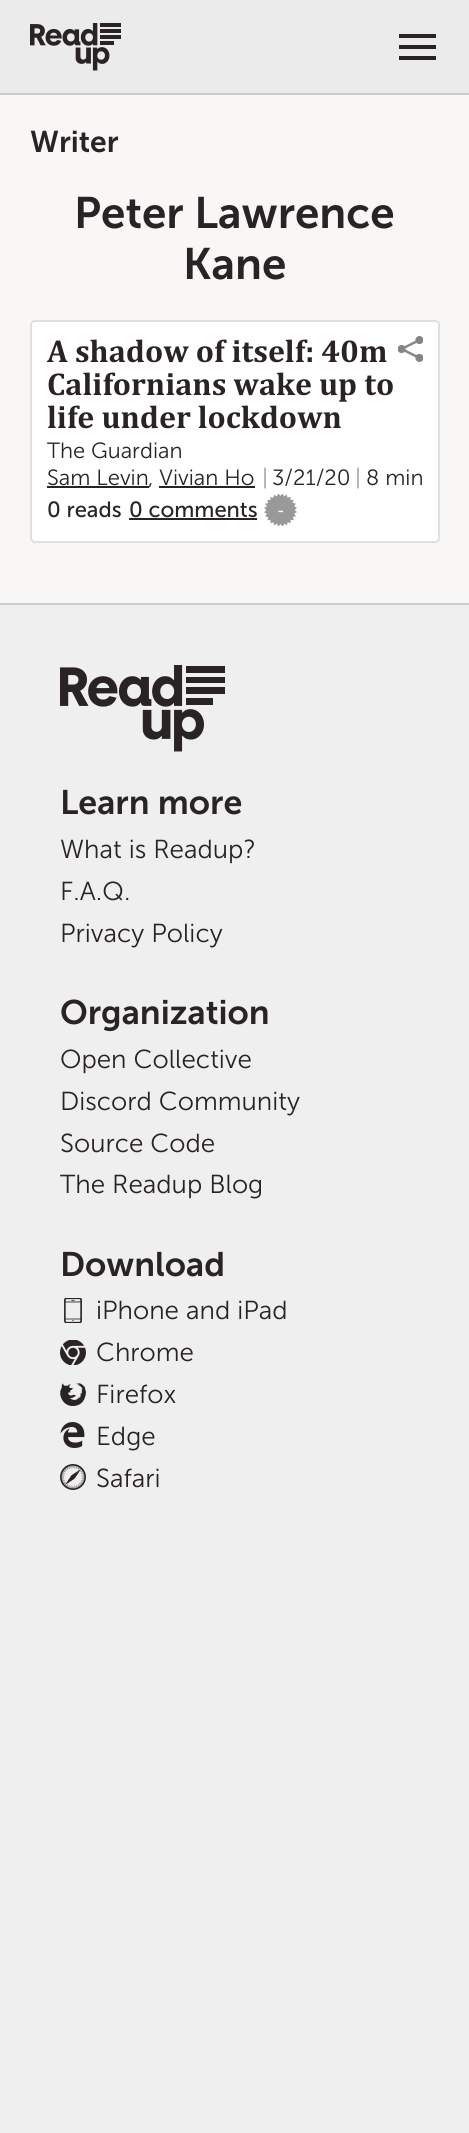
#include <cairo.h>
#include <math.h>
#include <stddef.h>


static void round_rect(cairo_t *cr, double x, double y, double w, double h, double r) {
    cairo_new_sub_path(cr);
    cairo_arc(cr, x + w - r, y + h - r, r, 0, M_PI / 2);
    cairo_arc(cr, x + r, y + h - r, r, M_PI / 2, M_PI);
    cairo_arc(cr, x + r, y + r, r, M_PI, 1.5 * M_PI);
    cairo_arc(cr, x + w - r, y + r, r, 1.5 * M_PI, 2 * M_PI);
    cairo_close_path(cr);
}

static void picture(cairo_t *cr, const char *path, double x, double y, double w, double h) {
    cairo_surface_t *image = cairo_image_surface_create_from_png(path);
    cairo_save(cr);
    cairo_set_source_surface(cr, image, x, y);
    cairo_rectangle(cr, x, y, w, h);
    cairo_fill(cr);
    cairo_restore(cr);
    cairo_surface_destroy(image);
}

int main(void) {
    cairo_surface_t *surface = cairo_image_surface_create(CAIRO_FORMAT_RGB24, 469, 2133);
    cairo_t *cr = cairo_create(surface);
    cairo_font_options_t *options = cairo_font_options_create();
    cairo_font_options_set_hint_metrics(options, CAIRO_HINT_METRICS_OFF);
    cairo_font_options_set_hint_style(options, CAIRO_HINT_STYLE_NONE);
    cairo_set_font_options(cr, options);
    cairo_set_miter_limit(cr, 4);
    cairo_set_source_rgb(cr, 0.937, 0.937, 0.937);
    cairo_paint(cr);
    cairo_set_source_rgb(cr, 0.969, 0.965, 0.961);
    cairo_rectangle(cr, 0, 95, 469, 508);
    cairo_fill(cr);
    cairo_set_source_rgb(cr, 0.918, 0.918, 0.918);
    cairo_rectangle(cr, 0, 0, 469, 93);
    cairo_fill(cr);
    cairo_set_source_rgb(cr, 0.8, 0.8, 0.8);
    cairo_rectangle(cr, 0, 93, 469, 2);
    cairo_fill(cr);
    picture(cr, "img1.png", 30, 23, 91, 48);
    cairo_set_source_rgb(cr, 0.165, 0.137, 0.149);
    cairo_rectangle(cr, 399, 34, 37, 4);
    cairo_fill(cr);
    cairo_rectangle(cr, 399, 45, 37, 4);
    cairo_fill(cr);
    cairo_rectangle(cr, 399, 56, 37, 4);
    cairo_fill(cr);
    cairo_select_font_face(cr, "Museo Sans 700 SemiBold", CAIRO_FONT_SLANT_NORMAL, CAIRO_FONT_WEIGHT_NORMAL);
    cairo_set_font_size(cr, 30);
    cairo_move_to(cr, 30, 152);
    cairo_show_text(cr, "Writer");
    cairo_set_font_size(cr, 44);
    cairo_move_to(cr, 74, 228);
    cairo_show_text(cr, "Peter Lawrence");
    cairo_move_to(cr, 183, 279);
    cairo_show_text(cr, "Kane");
    cairo_set_source_rgb(cr, 1, 1, 1);
    round_rect(cr, 31, 321, 408, 221, 4);
    cairo_fill_preserve(cr);
    cairo_set_source_rgb(cr, 0.878, 0.878, 0.878);
    cairo_stroke(cr);
    cairo_select_font_face(cr, "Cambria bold", CAIRO_FONT_SLANT_NORMAL, CAIRO_FONT_WEIGHT_BOLD);
    cairo_set_font_size(cr, 32);
    cairo_set_source_rgb(cr, 0.165, 0.137, 0.149);
    cairo_move_to(cr, 47, 362);
    cairo_show_text(cr, "A shadow of itself: 40m");
    picture(cr, "img2.png", 398, 336, 25, 26);
    cairo_move_to(cr, 47, 395);
    cairo_show_text(cr, "Californians wake up to");
    cairo_move_to(cr, 47, 428);
    cairo_show_text(cr, "life under lockdown");
    cairo_select_font_face(cr, "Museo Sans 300 Light", CAIRO_FONT_SLANT_NORMAL, CAIRO_FONT_WEIGHT_NORMAL);
    cairo_set_font_size(cr, 22);
    cairo_move_to(cr, 47, 458);
    cairo_show_text(cr, "The Guardian");
    cairo_move_to(cr, 47, 485);
    cairo_show_text(cr, "Sam Levin");
    cairo_rectangle(cr, 47, 486, 102, 2);
    cairo_fill(cr);
    cairo_move_to(cr, 148, 485);
    cairo_show_text(cr, ", Vivian Ho");
    cairo_rectangle(cr, 159, 486, 96, 2);
    cairo_fill(cr);
    cairo_set_source_rgb(cr, 0.6, 0.6, 0.6);
    cairo_move_to(cr, 262, 485);
    cairo_show_text(cr, "|");
    cairo_set_source_rgb(cr, 0.165, 0.137, 0.149);
    cairo_move_to(cr, 272, 485);
    cairo_show_text(cr, "3/21/20");
    cairo_set_source_rgb(cr, 0.6, 0.6, 0.6);
    cairo_move_to(cr, 355, 485);
    cairo_show_text(cr, "|");
    cairo_set_source_rgb(cr, 0.165, 0.137, 0.149);
    cairo_move_to(cr, 366, 485);
    cairo_show_text(cr, "8 min");
    cairo_select_font_face(cr, "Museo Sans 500", CAIRO_FONT_SLANT_NORMAL, CAIRO_FONT_WEIGHT_NORMAL);
    cairo_move_to(cr, 47, 517);
    cairo_show_text(cr, "0 reads");
    cairo_move_to(cr, 129, 517);
    cairo_show_text(cr, "0 comments");
    cairo_rectangle(cr, 129, 518, 128, 2);
    cairo_fill(cr);
    picture(cr, "img3.png", 264, 494, 33, 33);
    cairo_set_font_size(cr, 16);
    cairo_set_source_rgb(cr, 1, 1, 1);
    cairo_move_to(cr, 277, 516);
    cairo_show_text(cr, "-");
    cairo_set_source_rgb(cr, 0.8, 0.8, 0.8);
    cairo_rectangle(cr, 0, 603, 469, 2);
    cairo_fill(cr);
    picture(cr, "img4.png", 60, 665, 165, 87);
    cairo_select_font_face(cr, "Museo Sans 700 SemiBold", CAIRO_FONT_SLANT_NORMAL, CAIRO_FONT_WEIGHT_NORMAL);
    cairo_set_font_size(cr, 34);
    cairo_set_source_rgb(cr, 0.165, 0.137, 0.149);
    cairo_move_to(cr, 60, 814);
    cairo_show_text(cr, "Learn more");
    cairo_select_font_face(cr, "Museo Sans 300 Light", CAIRO_FONT_SLANT_NORMAL, CAIRO_FONT_WEIGHT_NORMAL);
    cairo_set_font_size(cr, 26);
    cairo_move_to(cr, 60, 858);
    cairo_show_text(cr, "What is Readup?");
    cairo_move_to(cr, 60, 900);
    cairo_show_text(cr, "F.A.Q.");
    cairo_move_to(cr, 60, 942);
    cairo_show_text(cr, "Privacy Policy");
    cairo_select_font_face(cr, "Museo Sans 700 SemiBold", CAIRO_FONT_SLANT_NORMAL, CAIRO_FONT_WEIGHT_NORMAL);
    cairo_set_font_size(cr, 34);
    cairo_move_to(cr, 60, 1024);
    cairo_show_text(cr, "Organization");
    cairo_select_font_face(cr, "Museo Sans 300 Light", CAIRO_FONT_SLANT_NORMAL, CAIRO_FONT_WEIGHT_NORMAL);
    cairo_set_font_size(cr, 26);
    cairo_move_to(cr, 60, 1068);
    cairo_show_text(cr, "Open Collective");
    cairo_move_to(cr, 60, 1110);
    cairo_show_text(cr, "Discord Community");
    cairo_move_to(cr, 60, 1152);
    cairo_show_text(cr, "Source Code");
    cairo_move_to(cr, 60, 1193);
    cairo_show_text(cr, "The Readup Blog");
    cairo_select_font_face(cr, "Museo Sans 700 SemiBold", CAIRO_FONT_SLANT_NORMAL, CAIRO_FONT_WEIGHT_NORMAL);
    cairo_set_font_size(cr, 34);
    cairo_move_to(cr, 60, 1276);
    cairo_show_text(cr, "Download");
    picture(cr, "img5.png", 64, 1298, 18, 25);
    cairo_select_font_face(cr, "Museo Sans 300 Light", CAIRO_FONT_SLANT_NORMAL, CAIRO_FONT_WEIGHT_NORMAL);
    cairo_set_font_size(cr, 26);
    cairo_move_to(cr, 96, 1319);
    cairo_show_text(cr, "iPhone and iPad");
    picture(cr, "img6.png", 60, 1340, 26, 25);
    cairo_move_to(cr, 96, 1361);
    cairo_show_text(cr, "Chrome");
    picture(cr, "img7.png", 60, 1383, 26, 23);
    cairo_move_to(cr, 96, 1403);
    cairo_show_text(cr, "Firefox");
    picture(cr, "img8.png", 60, 1422, 25, 26);
    cairo_move_to(cr, 96, 1445);
    cairo_show_text(cr, "Edge");
    picture(cr, "img9.png", 60, 1464, 26, 26);
    cairo_move_to(cr, 96, 1487);
    cairo_show_text(cr, "Safari");
    cairo_surface_write_to_png(surface, "page.png");
    cairo_font_options_destroy(options);
    cairo_destroy(cr);
    cairo_surface_destroy(surface);
    return 0;
}
